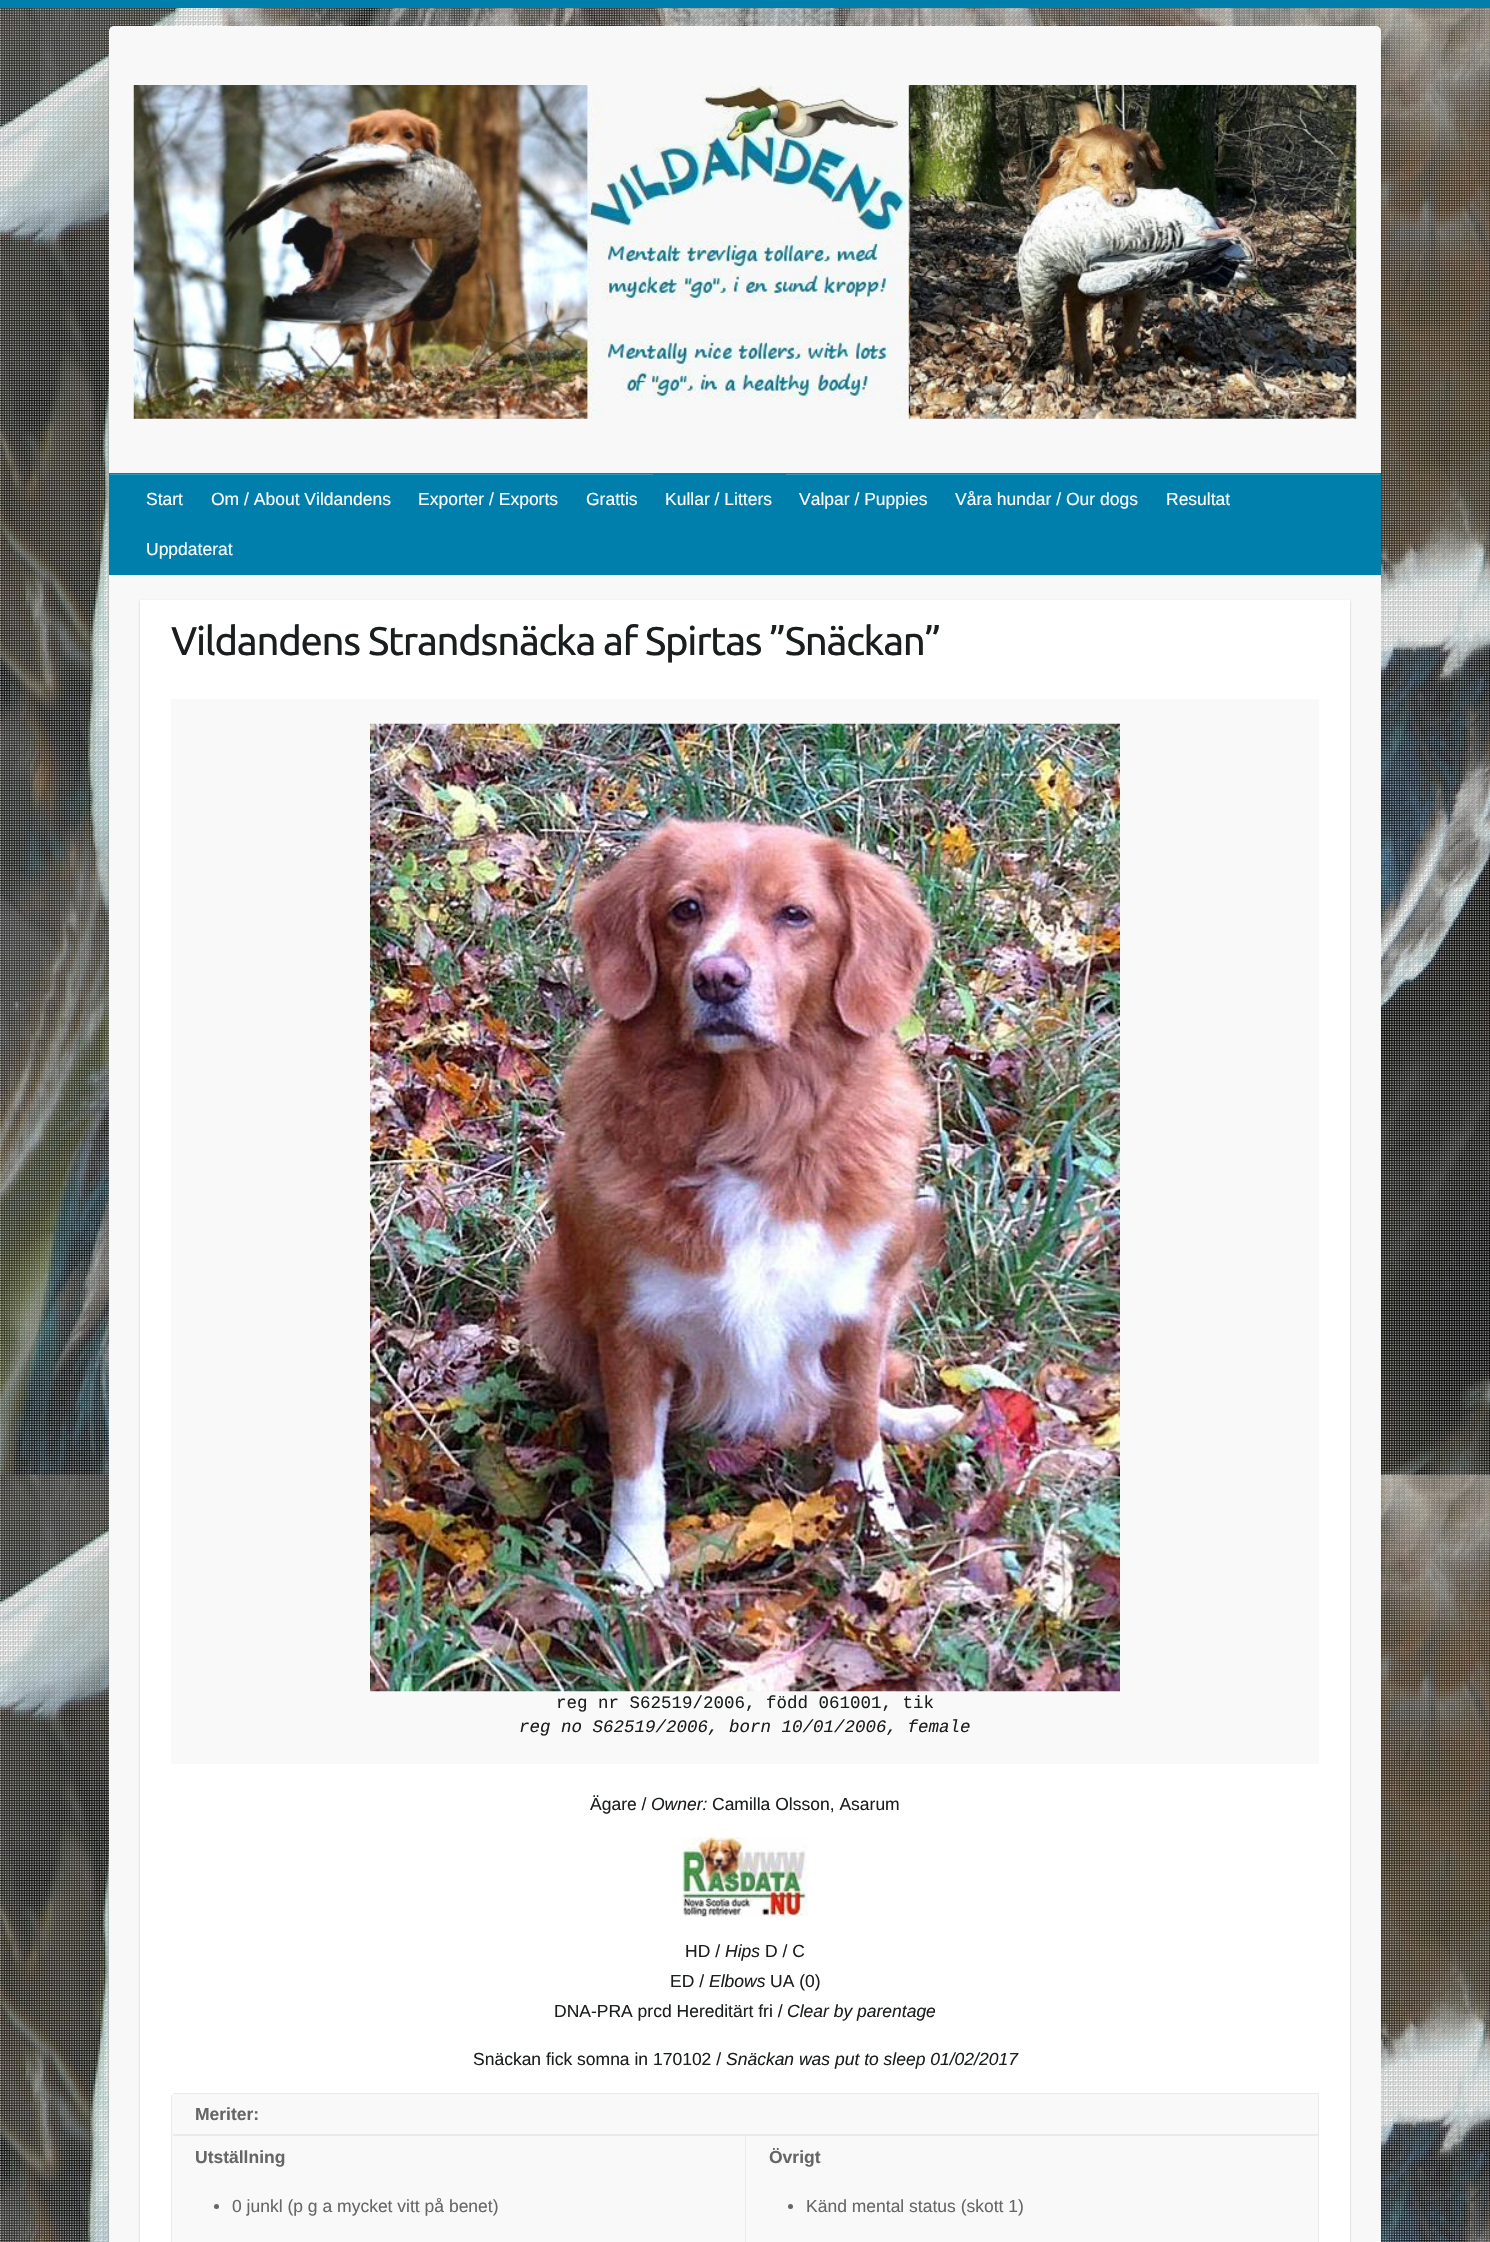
static SkFont makeFont(const char* family, int weight, float size, bool italic = false) {
  SkFontStyle style(weight, SkFontStyle::kNormal_Width,
    italic ? SkFontStyle::kItalic_Slant : SkFontStyle::kUpright_Slant);
  SkFont result(fontMgr->matchFamilyStyle(family, style), size);
  result.setSubpixel(true);
  return result;
}

static void text(SkCanvas* c, const char* s, float x, float y, const SkFont& font, SkColor color) {
  SkPaint ink(SkColor4f::FromColor(color));
  ink.setAntiAlias(true);
  c->drawString(s, x, y, font, ink);
}

static void spacedText(SkCanvas* c, const char* s, float x, float y, const SkFont& font, const SkPaint& ink, float letter, float word) {
  std::vector<SkGlyphID> glyphs(font.countText(s, strlen(s), SkTextEncoding::kUTF8));
  std::vector<float> xs(glyphs.size());
  font.textToGlyphs(s, strlen(s), SkTextEncoding::kUTF8, glyphs);
  font.getXPos(glyphs, xs, x);
  float extra = 0;
  for (size_t i = 0; i < glyphs.size(); i++) {
    xs[i] += extra;
    extra += letter + word * (glyphs[i] == font.unicharToGlyph(' '));
  }
  c->drawTextBlob(SkTextBlob::MakeFromPosHGlyphs(glyphs, xs, y, font), 0, 0, ink);
}

static void box(SkCanvas* c, float l, float t, float r, float b, SkColor color) {
  SkPaint ink(SkColor4f::FromColor(color));
  ink.setAntiAlias(true);
  c->drawRect(SkRect::MakeLTRB(l, t, r, b), ink);
}

static void roundBox(SkCanvas* c, float l, float t, float r, float b, float radius, SkColor color) {
  SkPaint ink(SkColor4f::FromColor(color));
  ink.setAntiAlias(true);
  c->drawRoundRect(SkRect::MakeLTRB(l, t, r, b), radius, radius, ink);
}

static void picture(SkCanvas* c, const char* path, float l, float t, float r, float b) {
  auto image = SkImages::DeferredFromEncodedData(SkData::MakeFromFileName(path));
  c->drawImageRect(image, SkRect::MakeLTRB(l, t, r, b), SkSamplingOptions());
}

void draw(SkCanvas* c) {
  SkPaint paint;
  paint.setAntiAlias(true);
  c->clear(0xffffffff);
  picture(c, "img_01.png", 0, 8, 1490, 2242);
  box(c, 0, 0, 1490, 8, 0xff007fac);
  paint.setColor(0x33000000);
  paint.setMaskFilter(SkMaskFilter::MakeBlur(kNormal_SkBlurStyle, 1));
  c->drawRoundRect(SkRect::MakeLTRB(109, 28, 1381, 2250), 5, 5, paint);
  paint.setMaskFilter(nullptr);
  roundBox(c, 109, 26, 1381, 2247, 5, 0xfff8f8f8);
  picture(c, "img_02.png", 133, 85, 1357, 419);
  box(c, 109, 473, 1381, 575, 0xff007fac);
  box(c, 110, 474, 1380, 475, 0xff3399bd);
  SkFont face1 = makeFont("Liberation Sans", 400, 17.5f);
  text(c, "Start", 146, 505, face1, 0xffffffff);
  text(c, "Om / About Vildandens", 211, 505, face1, 0xffffffff);
  text(c, "Exporter / Exports", 418, 505, face1, 0xffffffff);
  text(c, "Grattis", 586, 505, face1, 0xffffffff);
  box(c, 653, 474, 786, 475, 0xff007fac);
  text(c, "Kullar / Litters", 665, 505, face1, 0xffffffff);
  text(c, "Valpar / Puppies", 799, 505, face1, 0xffffffff);
  text(c, "Våra hundar / Our dogs", 955, 505, face1, 0xffffffff);
  text(c, "Resultat", 1166, 505, face1, 0xffffffff);
  text(c, "Uppdaterat", 146, 555, face1, 0xffffffff);
  paint.setMaskFilter(SkMaskFilter::MakeBlur(kNormal_SkBlurStyle, 1));
  c->drawRect(SkRect::MakeLTRB(140, 601, 1350, 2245), paint);
  paint.setMaskFilter(nullptr);
  box(c, 140, 600, 1350, 2242, 0xffffffff);
  SkFont face2 = makeFont("Ubuntu", 400, 40);
  paint.setColor(0xff1b1e1f);
  spacedText(c, "Vildandens Strandsnäcka af Spirtas ”Snäckan”", 171, 655, face2, paint, -1.25f, 0);
  box(c, 171, 699, 1319, 1764, 0xfff9f9f9);
  picture(c, "img_03.png", 370, 723, 1120, 1692);
  SkFont face3 = makeFont("Liberation Mono", 400, 17.5f);
  text(c, "reg nr S62519/2006, född 061001, tik", 556, 1708, face3, 0xff1b1e1f);
  SkFont face4 = makeFont("Liberation Mono", 400, 17.5f, true);
  text(c, "reg no S62519/2006, born 10/01/2006, female", 519, 1732, face4, 0xff1b1e1f);
  text(c, "Ägare /", 590, 1810, face1, 0xff1b1e1f);
  SkFont face5 = makeFont("Liberation Sans", 400, 17.5f, true);
  text(c, "Owner:", 651, 1810, face5, 0xff1b1e1f);
  text(c, "Camilla Olsson, Asarum", 712, 1810, face1, 0xff1b1e1f);
  picture(c, "img_04.png", 682, 1837, 808, 1917);
  text(c, "HD /", 685, 1957, face1, 0xff1b1e1f);
  text(c, "Hips", 725, 1957, face5, 0xff1b1e1f);
  text(c, "D / C", 765, 1957, face1, 0xff1b1e1f);
  text(c, "ED /", 670, 1987, face1, 0xff1b1e1f);
  text(c, "Elbows", 709, 1987, face5, 0xff1b1e1f);
  text(c, "UA (0)", 770, 1987, face1, 0xff1b1e1f);
  text(c, "DNA-PRA prcd Hereditärt fri /", 554, 2017, face1, 0xff1b1e1f);
  text(c, "Clear by parentage", 787, 2017, face5, 0xff1b1e1f);
  text(c, "Snäckan fick somna in 170102 /", 473, 2065, face1, 0xff1b1e1f);
  text(c, "Snäckan was put to sleep 01/02/2017", 726, 2065, face5, 0xff1b1e1f);
  roundBox(c, 171, 2093, 1319, 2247, 5, 0xfff9f9f9);
  box(c, 171, 2095, 172, 2242, 0xffeaeaea);
  box(c, 1317, 2094, 1318, 2095, 0xfff9f9f9);
  box(c, 173, 2093, 1319, 2094, 0xffeaeaea);
  box(c, 1318, 2093, 1319, 2135, 0xffeaeaea);
  box(c, 173, 2134, 1319, 2135, 0xffeaeaea);
  SkFont face6 = makeFont("Liberation Sans", 700, 17.5f);
  text(c, "Meriter:", 195, 2120, face6, 0xff666666);
  box(c, 173, 2135, 1319, 2136, 0xffeaeaea);
  box(c, 745, 2135, 746, 2242, 0xffeaeaea);
  text(c, "Utställning", 195, 2163, face6, 0xff666666);
  paint.setColor(0xff666666);
  c->drawCircle(216.5f, 2206.5f, 2.5f, paint);
  text(c, "0 junkl (p g a mycket vitt på benet)", 232, 2212, face1, 0xff666666);
  box(c, 1318, 2135, 1319, 2242, 0xffeaeaea);
  text(c, "Övrigt", 769, 2163, face6, 0xff666666);
  c->drawCircle(790.5f, 2206.5f, 2.5f, paint);
  text(c, "Känd mental status (skott 1)", 806, 2212, face1, 0xff666666);
}
